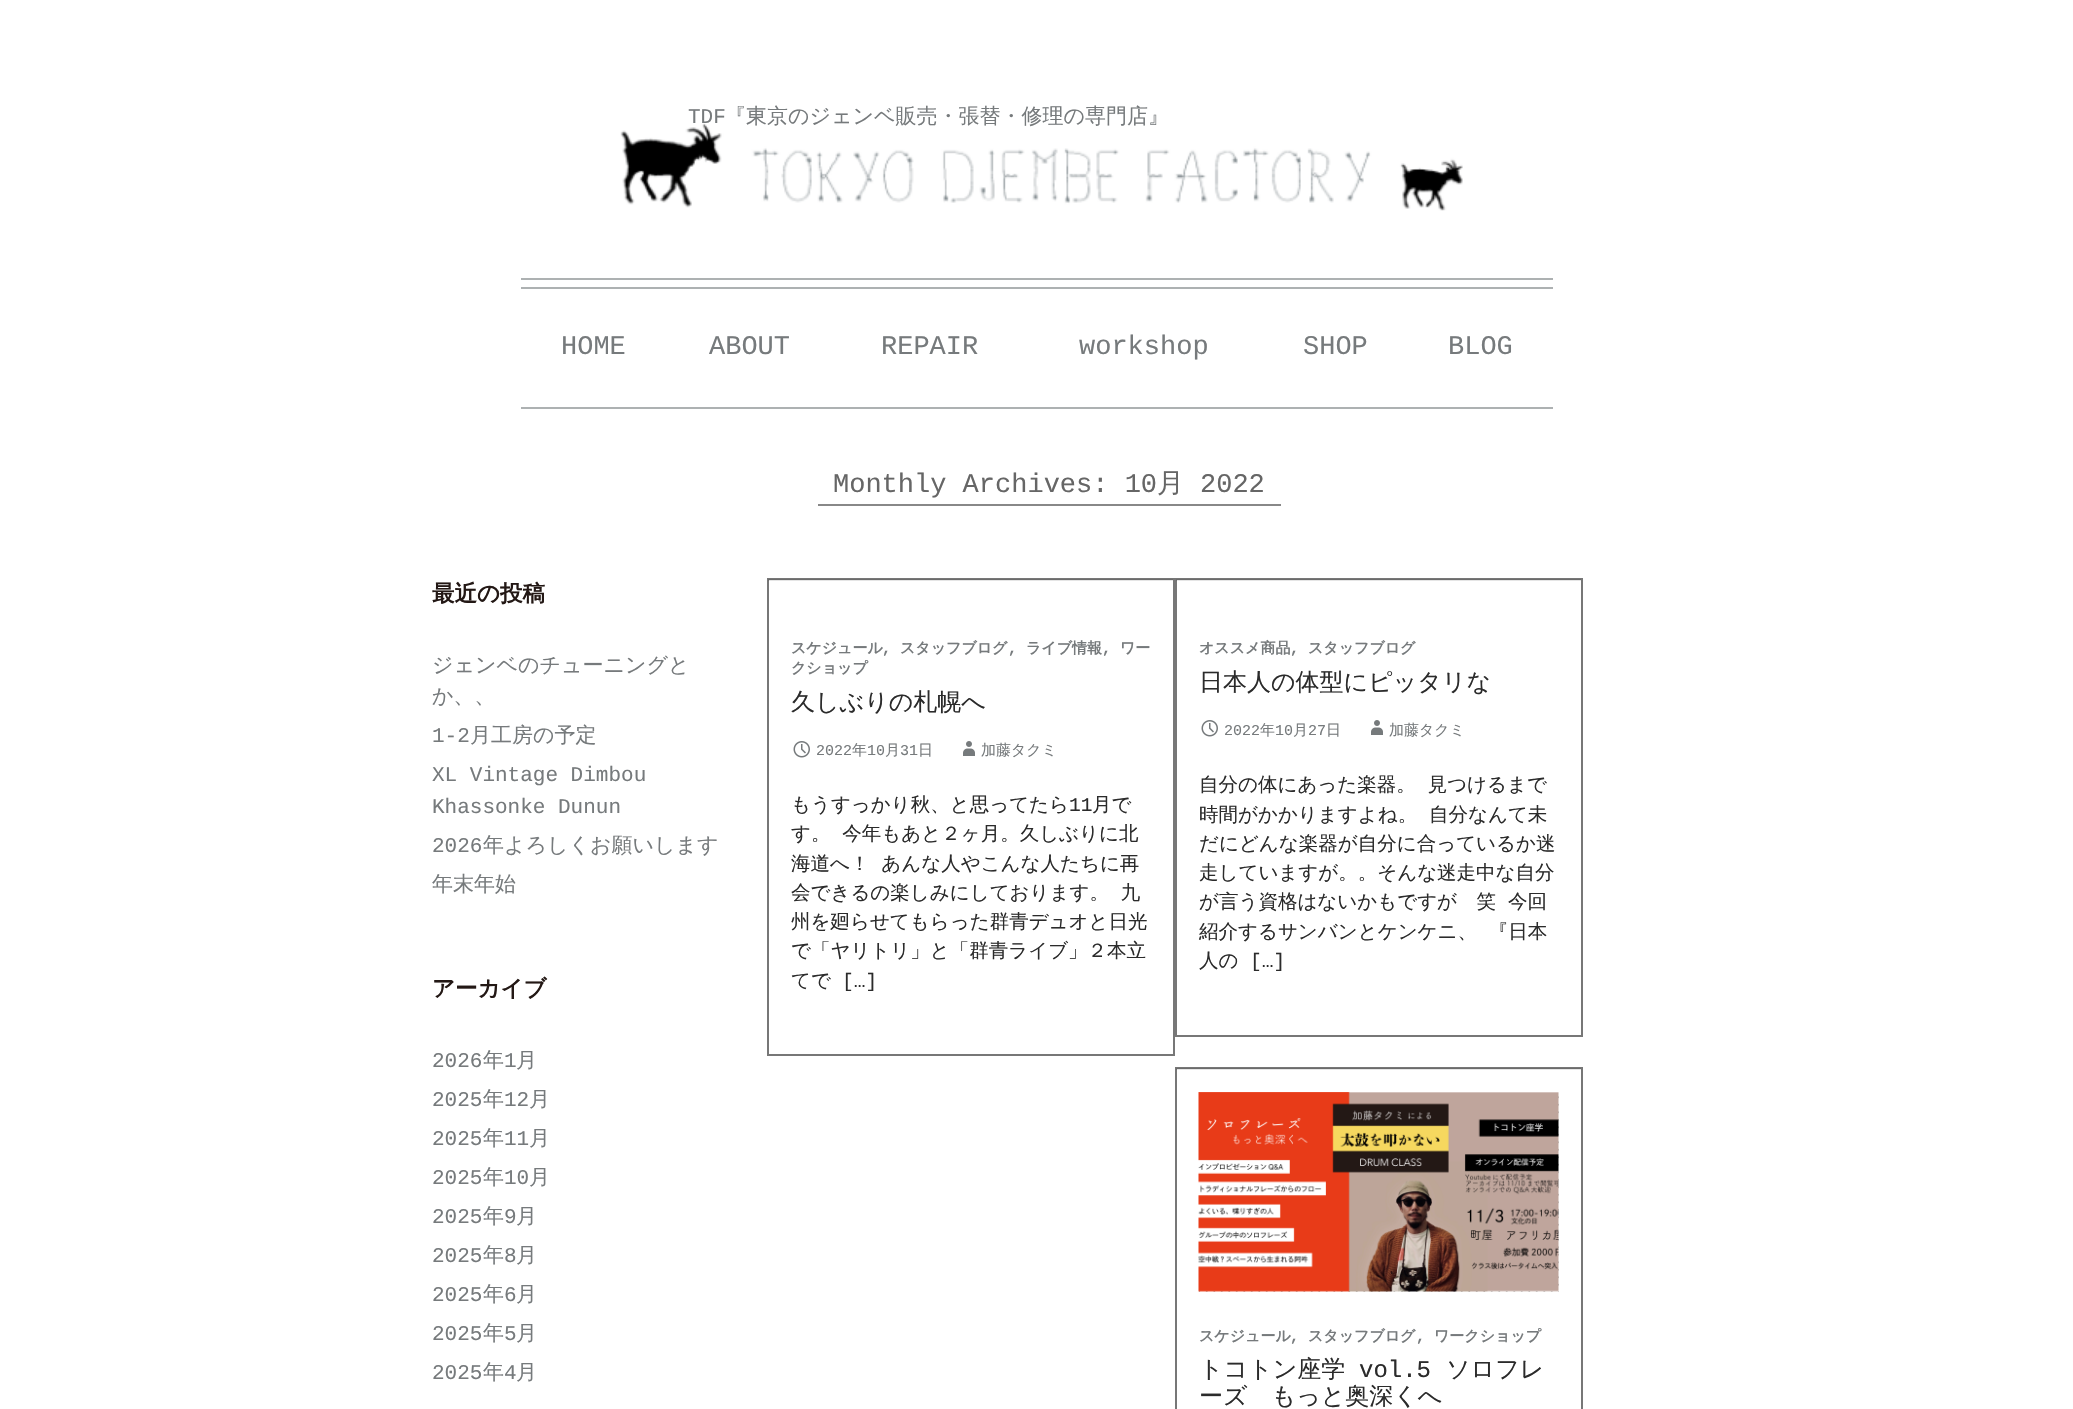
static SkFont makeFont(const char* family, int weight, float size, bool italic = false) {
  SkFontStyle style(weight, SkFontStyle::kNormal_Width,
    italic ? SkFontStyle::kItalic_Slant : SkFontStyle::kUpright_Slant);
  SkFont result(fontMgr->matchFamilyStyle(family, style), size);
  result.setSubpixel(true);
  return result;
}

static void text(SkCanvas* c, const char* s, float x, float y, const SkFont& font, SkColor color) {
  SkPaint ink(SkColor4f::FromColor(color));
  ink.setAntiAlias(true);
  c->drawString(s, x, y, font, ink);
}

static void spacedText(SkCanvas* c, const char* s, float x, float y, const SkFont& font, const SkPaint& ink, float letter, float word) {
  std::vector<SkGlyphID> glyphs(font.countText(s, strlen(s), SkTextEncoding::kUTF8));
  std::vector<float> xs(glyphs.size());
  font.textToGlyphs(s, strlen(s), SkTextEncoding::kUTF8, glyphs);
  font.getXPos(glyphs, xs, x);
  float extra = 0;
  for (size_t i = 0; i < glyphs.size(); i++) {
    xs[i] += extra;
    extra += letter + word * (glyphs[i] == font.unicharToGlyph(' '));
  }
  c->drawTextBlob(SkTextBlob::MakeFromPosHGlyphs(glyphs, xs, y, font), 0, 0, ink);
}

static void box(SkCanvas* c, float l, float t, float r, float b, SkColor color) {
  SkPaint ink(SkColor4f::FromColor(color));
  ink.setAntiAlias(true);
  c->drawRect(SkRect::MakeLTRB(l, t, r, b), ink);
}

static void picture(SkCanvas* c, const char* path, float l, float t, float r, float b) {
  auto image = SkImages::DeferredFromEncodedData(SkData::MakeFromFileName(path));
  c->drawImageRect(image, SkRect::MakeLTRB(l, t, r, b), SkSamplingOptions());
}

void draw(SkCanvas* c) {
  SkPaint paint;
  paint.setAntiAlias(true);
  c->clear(0xffffffff);
  SkFont face1 = makeFont("Liberation Mono", 400, 21);
  text(c, "TDF", 688, 123, face1, 0xff767a7c);
  picture(c, "img_01.png", 620, 123, 1463, 211);
  SkFont face2 = makeFont("WenQuanYi Zen Hei", 500, 21);
  text(c, "『東京のジェンベ販売・張替・修理の専門店』", 725, 123, face2, 0xff767a7c);
  box(c, 521, 278, 1553, 280, 0xffadb1b2);
  box(c, 521, 287, 1553, 289, 0xffadb1b2);
  box(c, 521, 407, 1553, 409, 0xffadb1b2);
  SkFont face3 = makeFont("Liberation Mono", 400, 27);
  text(c, "HOME", 561, 354, face3, 0xff767a7c);
  text(c, "ABOUT", 709, 354, face3, 0xff767a7c);
  text(c, "REPAIR", 881, 354, face3, 0xff767a7c);
  text(c, "workshop", 1079, 354, face3, 0xff767a7c);
  text(c, "SHOP", 1303, 354, face3, 0xff767a7c);
  text(c, "BLOG", 1448, 354, face3, 0xff767a7c);
  text(c, "Monthly Archives: 10", 833, 492, face3, 0xff666666);
  box(c, 818, 504, 1281, 506, 0xff888888);
  SkFont face4 = makeFont("WenQuanYi Zen Hei", 500, 27);
  text(c, "月", 1157, 492, face4, 0xff666666);
  text(c, "2022", 1200, 492, face3, 0xff666666);
  SkFont face5 = makeFont("WenQuanYi Zen Hei", 700, 22.5f);
  text(c, "最近の投稿", 432, 601, face5, 0xff231815);
  text(c, "ジェンベのチューニングと", 432, 672, face2, 0xff767a7c);
  text(c, "か、、", 432, 703, face2, 0xff767a7c);
  text(c, "1-2", 432, 742, face1, 0xff767a7c);
  text(c, "月工房の予定", 470, 742, face2, 0xff767a7c);
  text(c, "XL Vintage Dimbou", 432, 781, face1, 0xff767a7c);
  text(c, "Khassonke Dunun", 432, 813, face1, 0xff767a7c);
  text(c, "2026", 432, 852, face1, 0xff767a7c);
  text(c, "年よろしくお願いします", 483, 852, face2, 0xff767a7c);
  text(c, "年末年始", 432, 891, face2, 0xff767a7c);
  text(c, "アーカイブ", 432, 996, face5, 0xff231815);
  text(c, "2026", 432, 1067, face1, 0xff767a7c);
  text(c, "年", 483, 1067, face2, 0xff767a7c);
  text(c, "1", 504, 1067, face1, 0xff767a7c);
  text(c, "月", 516, 1067, face2, 0xff767a7c);
  text(c, "2025", 432, 1106, face1, 0xff767a7c);
  text(c, "年", 483, 1106, face2, 0xff767a7c);
  text(c, "12", 504, 1106, face1, 0xff767a7c);
  text(c, "月", 529, 1106, face2, 0xff767a7c);
  text(c, "2025", 432, 1145, face1, 0xff767a7c);
  text(c, "年", 483, 1145, face2, 0xff767a7c);
  text(c, "11", 504, 1145, face1, 0xff767a7c);
  text(c, "月", 529, 1145, face2, 0xff767a7c);
  text(c, "2025", 432, 1184, face1, 0xff767a7c);
  text(c, "年", 483, 1184, face2, 0xff767a7c);
  text(c, "10", 504, 1184, face1, 0xff767a7c);
  text(c, "月", 529, 1184, face2, 0xff767a7c);
  text(c, "2025", 432, 1223, face1, 0xff767a7c);
  text(c, "年", 483, 1223, face2, 0xff767a7c);
  text(c, "9", 504, 1223, face1, 0xff767a7c);
  text(c, "月", 516, 1223, face2, 0xff767a7c);
  text(c, "2025", 432, 1262, face1, 0xff767a7c);
  text(c, "年", 483, 1262, face2, 0xff767a7c);
  text(c, "8", 504, 1262, face1, 0xff767a7c);
  text(c, "月", 516, 1262, face2, 0xff767a7c);
  text(c, "2025", 432, 1301, face1, 0xff767a7c);
  text(c, "年", 483, 1301, face2, 0xff767a7c);
  text(c, "6", 504, 1301, face1, 0xff767a7c);
  text(c, "月", 516, 1301, face2, 0xff767a7c);
  text(c, "2025", 432, 1340, face1, 0xff767a7c);
  text(c, "年", 483, 1340, face2, 0xff767a7c);
  text(c, "5", 504, 1340, face1, 0xff767a7c);
  text(c, "月", 516, 1340, face2, 0xff767a7c);
  text(c, "2025", 432, 1379, face1, 0xff767a7c);
  text(c, "年", 483, 1379, face2, 0xff767a7c);
  text(c, "4", 504, 1379, face1, 0xff767a7c);
  text(c, "月", 516, 1379, face2, 0xff767a7c);
  paint.setStyle(SkPaint::kStroke_Style);
  paint.setStrokeWidth(2);
  paint.setColor(0xff777777);
  c->drawRect(SkRect::MakeLTRB(768, 579, 1174, 1055), paint);
  box(c, 768, 579, 1173, 581, 0x1a000000);
  SkFont face6 = makeFont("WenQuanYi Zen Hei", 700, 15);
  text(c, "スケジュール", 791, 653, face6, 0xff767a7c);
  SkFont face7 = makeFont("Liberation Mono", 700, 15);
  text(c, ",", 882, 653, face7, 0xff767a7c);
  text(c, "スタッフブログ", 900, 653, face6, 0xff767a7c);
  text(c, ",", 1008, 653, face7, 0xff767a7c);
  text(c, "ライブ情報", 1026, 653, face6, 0xff767a7c);
  text(c, ",", 1102, 653, face7, 0xff767a7c);
  text(c, "ワー", 1120, 653, face6, 0xff767a7c);
  text(c, "クショップ", 791, 673, face6, 0xff767a7c);
  SkFont face8 = makeFont("WenQuanYi Zen Hei", 500, 24);
  text(c, "久しぶりの札幌へ", 791, 710, face8, 0xff2b2b2b);
  picture(c, "img_02.png", 793, 741, 810, 758);
  SkFont face9 = makeFont("Liberation Mono", 400, 15);
  text(c, "2022", 816, 755, face9, 0xff767a7c);
  SkFont face10 = makeFont("WenQuanYi Zen Hei", 500, 15);
  text(c, "年", 852, 755, face10, 0xff767a7c);
  text(c, "10", 867, 755, face9, 0xff767a7c);
  text(c, "月", 885, 755, face10, 0xff767a7c);
  text(c, "31", 900, 755, face9, 0xff767a7c);
  text(c, "日", 918, 755, face10, 0xff767a7c);
  picture(c, "img_03.png", 963, 741, 975, 756);
  text(c, "加藤タクミ", 981, 755, face10, 0xff767a7c);
  SkFont face11 = makeFont("WenQuanYi Zen Hei", 500, 19.5f);
  text(c, "もうすっかり秋、と思ってたら", 791, 811, face11, 0xff2b2b2b);
  SkFont face12 = makeFont("Liberation Mono", 400, 19.5f);
  text(c, "11", 1069, 811, face12, 0xff2b2b2b);
  text(c, "月で", 1092, 811, face11, 0xff2b2b2b);
  paint.setStyle(SkPaint::kFill_Style);
  paint.setColor(0xff2b2b2b);
  spacedText(c, "す。 今年もあと２ヶ月。久しぶりに北", 791, 840, face11, paint, 0, 6);
  spacedText(c, "海道へ！ あんな人やこんな人たちに再", 791, 870, face11, paint, 0, 6);
  spacedText(c, "会できるの楽しみにしております。 九", 791, 899, face11, paint, 0, 6);
  text(c, "州を廻らせてもらった群青デュオと日光", 791, 928, face11, 0xff2b2b2b);
  text(c, "で「ヤリトリ」と「群青ライブ」２本立", 791, 957, face11, 0xff2b2b2b);
  text(c, "てで", 791, 987, face11, 0xff2b2b2b);
  text(c, "[…]", 842, 987, face12, 0xff2b2b2b);
  paint.setStyle(SkPaint::kStroke_Style);
  paint.setColor(0xff777777);
  c->drawRect(SkRect::MakeLTRB(1176, 579, 1582, 1036), paint);
  box(c, 1176, 579, 1581, 581, 0x1a000000);
  text(c, "オススメ商品", 1199, 653, face6, 0xff767a7c);
  text(c, ",", 1290, 653, face7, 0xff767a7c);
  text(c, "スタッフブログ", 1308, 653, face6, 0xff767a7c);
  text(c, "日本人の体型にピッタリな", 1199, 690, face8, 0xff2b2b2b);
  picture(c, "img_02.png", 1201, 720, 1218, 737);
  text(c, "2022", 1224, 735, face9, 0xff767a7c);
  text(c, "年", 1260, 735, face10, 0xff767a7c);
  text(c, "10", 1275, 735, face9, 0xff767a7c);
  text(c, "月", 1293, 735, face10, 0xff767a7c);
  text(c, "27", 1308, 735, face9, 0xff767a7c);
  text(c, "日", 1326, 735, face10, 0xff767a7c);
  picture(c, "img_03.png", 1371, 720, 1383, 735);
  text(c, "加藤タクミ", 1389, 735, face10, 0xff767a7c);
  paint.setStyle(SkPaint::kFill_Style);
  paint.setColor(0xff2b2b2b);
  spacedText(c, "自分の体にあった楽器。 見つけるまで", 1199, 791, face11, paint, 0, 6);
  spacedText(c, "時間がかかりますよね。 自分なんて未", 1199, 821, face11, paint, 0, 6);
  text(c, "だにどんな楽器が自分に合っているか迷", 1199, 850, face11, 0xff2b2b2b);
  text(c, "走していますが。。そんな迷走中な自分", 1199, 879, face11, 0xff2b2b2b);
  spacedText(c, "が言う資格はないかもですが　笑 今回", 1199, 908, face11, paint, 0, 6);
  spacedText(c, "紹介するサンバンとケンケニ、 『日本", 1199, 938, face11, paint, 0, 6);
  text(c, "人の", 1199, 967, face11, 0xff2b2b2b);
  text(c, "[…]", 1250, 967, face12, 0xff2b2b2b);
  paint.setStyle(SkPaint::kStroke_Style);
  paint.setColor(0xff777777);
  c->drawRect(SkRect::MakeLTRB(1176, 1068, 1582, 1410), paint);
  box(c, 1176, 1068, 1581, 1070, 0x1a000000);
  box(c, 1199, 1096, 1559, 1292, 0xffb2b2b2);
  picture(c, "img_04.png", 1199, 1092, 1559, 1292);
  picture(c, "img_05.png", 1198, 1092, 1559, 1292);
  text(c, "スケジュール", 1199, 1341, face6, 0xff767a7c);
  text(c, ",", 1290, 1341, face7, 0xff767a7c);
  text(c, "スタッフブログ", 1308, 1341, face6, 0xff767a7c);
  text(c, ",", 1416, 1341, face7, 0xff767a7c);
  text(c, "ワークショップ", 1434, 1341, face6, 0xff767a7c);
  text(c, "トコトン座学", 1199, 1377, face8, 0xff2b2b2b);
  SkFont face13 = makeFont("Liberation Mono", 400, 24);
  text(c, "vol.5", 1359, 1377, face13, 0xff2b2b2b);
  text(c, "ソロフレ", 1446, 1377, face8, 0xff2b2b2b);
  text(c, "ーズ　もっと奥深くへ", 1199, 1404, face8, 0xff2b2b2b);
}
